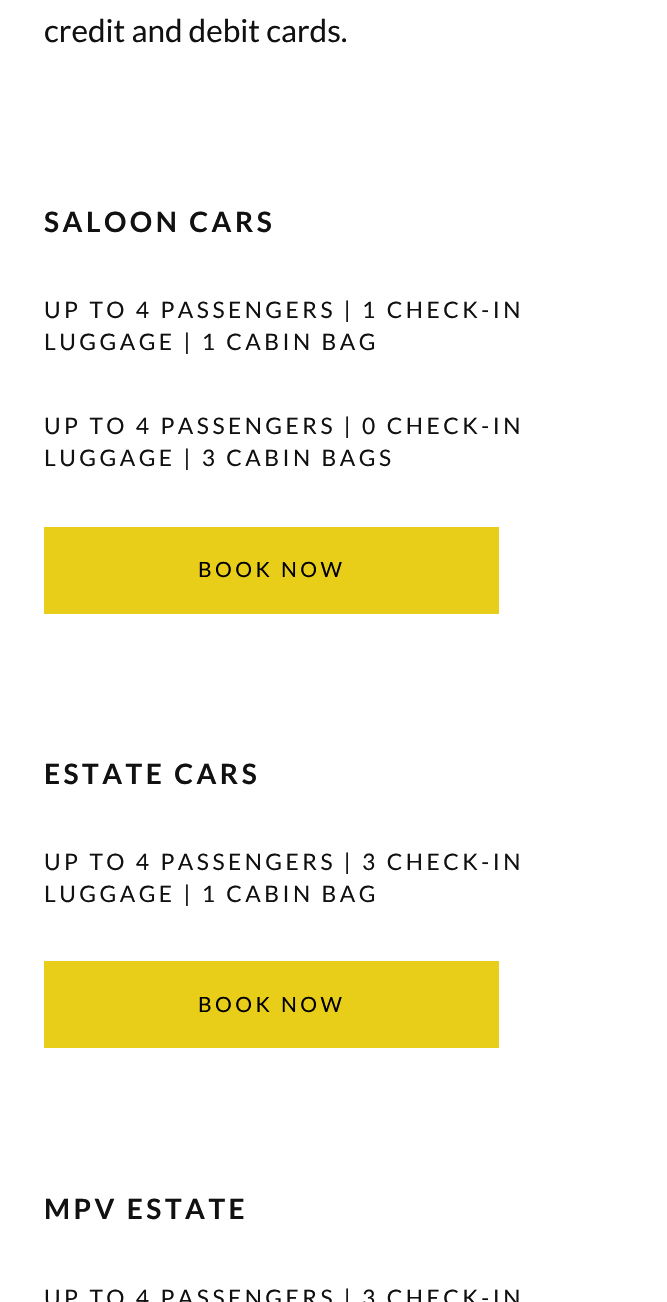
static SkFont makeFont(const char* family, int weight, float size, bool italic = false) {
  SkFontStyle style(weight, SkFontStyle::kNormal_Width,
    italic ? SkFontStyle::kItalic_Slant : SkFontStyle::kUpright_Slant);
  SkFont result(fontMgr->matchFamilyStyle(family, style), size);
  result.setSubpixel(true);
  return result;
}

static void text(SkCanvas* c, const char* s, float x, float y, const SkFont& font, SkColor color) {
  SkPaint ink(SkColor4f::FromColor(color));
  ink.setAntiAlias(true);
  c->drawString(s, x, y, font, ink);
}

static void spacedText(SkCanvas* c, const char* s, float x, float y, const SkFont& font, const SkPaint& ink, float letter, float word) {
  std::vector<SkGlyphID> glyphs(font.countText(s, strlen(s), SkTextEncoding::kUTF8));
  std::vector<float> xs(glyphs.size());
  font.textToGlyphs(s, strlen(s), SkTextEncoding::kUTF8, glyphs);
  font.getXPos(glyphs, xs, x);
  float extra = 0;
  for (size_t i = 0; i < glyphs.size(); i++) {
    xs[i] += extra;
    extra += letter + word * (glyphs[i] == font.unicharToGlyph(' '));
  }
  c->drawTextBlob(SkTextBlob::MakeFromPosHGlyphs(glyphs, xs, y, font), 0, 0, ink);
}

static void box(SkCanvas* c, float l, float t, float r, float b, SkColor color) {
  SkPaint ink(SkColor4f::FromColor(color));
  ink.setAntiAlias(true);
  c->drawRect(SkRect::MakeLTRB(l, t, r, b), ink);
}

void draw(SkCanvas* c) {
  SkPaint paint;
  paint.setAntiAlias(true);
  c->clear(0xffffffff);
  SkFont face1 = makeFont("Lato", 400, 31.5f);
  text(c, "credit and debit cards.", 44, 42, face1, 0xff111111);
  SkFont face2 = makeFont("Lato", 700, 28);
  paint.setColor(0xff111111);
  spacedText(c, "SALOON CARS", 44, 232, face2, paint, 3.5f, 0);
  SkFont face3 = makeFont("Lato", 400, 22.75f);
  spacedText(c, "UP TO 4 PASSENGERS | 1 CHECK-IN", 44, 318, face3, paint, 3.5f, 0);
  spacedText(c, "LUGGAGE | 1 CABIN BAG", 44, 350, face3, paint, 3.5f, 0);
  spacedText(c, "UP TO 4 PASSENGERS | 0 CHECK-IN", 44, 434, face3, paint, 3.5f, 0);
  spacedText(c, "LUGGAGE | 3 CABIN BAGS", 44, 466, face3, paint, 3.5f, 0);
  box(c, 44, 527, 499, 614, 0xffe8cd19);
  SkFont face4 = makeFont("Lato", 400, 21);
  paint.setColor(0xff000000);
  spacedText(c, "BOOK NOW", 198, 577, face4, paint, 3.5f, 0);
  paint.setColor(0xff111111);
  spacedText(c, "ESTATE CARS", 44, 784, face2, paint, 3.5f, 0);
  spacedText(c, "UP TO 4 PASSENGERS | 3 CHECK-IN", 44, 870, face3, paint, 3.5f, 0);
  spacedText(c, "LUGGAGE | 1 CABIN BAG", 44, 902, face3, paint, 3.5f, 0);
  box(c, 44, 961, 499, 1048, 0xffe8cd19);
  paint.setColor(0xff000000);
  spacedText(c, "BOOK NOW", 198, 1012, face4, paint, 3.5f, 0);
  paint.setColor(0xff111111);
  spacedText(c, "MPV ESTATE", 44, 1219, face2, paint, 3.5f, 0);
  spacedText(c, "UP TO 4 PASSENGERS | 3 CHECK-IN", 44, 1306, face3, paint, 3.5f, 0);
}
